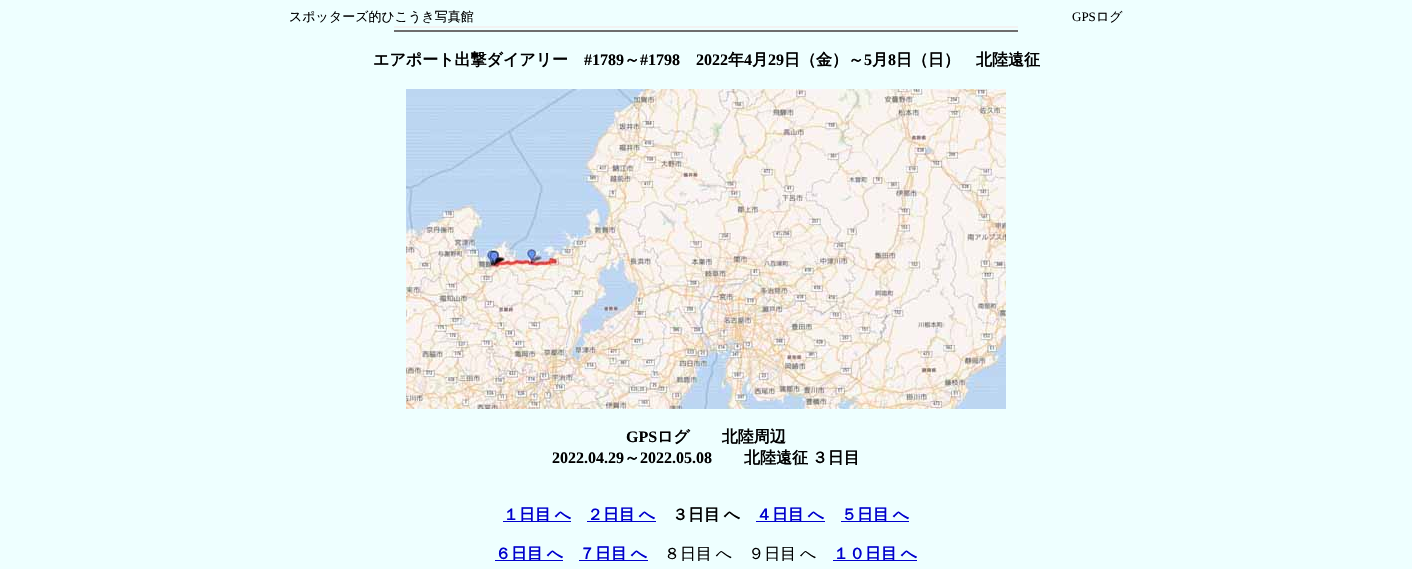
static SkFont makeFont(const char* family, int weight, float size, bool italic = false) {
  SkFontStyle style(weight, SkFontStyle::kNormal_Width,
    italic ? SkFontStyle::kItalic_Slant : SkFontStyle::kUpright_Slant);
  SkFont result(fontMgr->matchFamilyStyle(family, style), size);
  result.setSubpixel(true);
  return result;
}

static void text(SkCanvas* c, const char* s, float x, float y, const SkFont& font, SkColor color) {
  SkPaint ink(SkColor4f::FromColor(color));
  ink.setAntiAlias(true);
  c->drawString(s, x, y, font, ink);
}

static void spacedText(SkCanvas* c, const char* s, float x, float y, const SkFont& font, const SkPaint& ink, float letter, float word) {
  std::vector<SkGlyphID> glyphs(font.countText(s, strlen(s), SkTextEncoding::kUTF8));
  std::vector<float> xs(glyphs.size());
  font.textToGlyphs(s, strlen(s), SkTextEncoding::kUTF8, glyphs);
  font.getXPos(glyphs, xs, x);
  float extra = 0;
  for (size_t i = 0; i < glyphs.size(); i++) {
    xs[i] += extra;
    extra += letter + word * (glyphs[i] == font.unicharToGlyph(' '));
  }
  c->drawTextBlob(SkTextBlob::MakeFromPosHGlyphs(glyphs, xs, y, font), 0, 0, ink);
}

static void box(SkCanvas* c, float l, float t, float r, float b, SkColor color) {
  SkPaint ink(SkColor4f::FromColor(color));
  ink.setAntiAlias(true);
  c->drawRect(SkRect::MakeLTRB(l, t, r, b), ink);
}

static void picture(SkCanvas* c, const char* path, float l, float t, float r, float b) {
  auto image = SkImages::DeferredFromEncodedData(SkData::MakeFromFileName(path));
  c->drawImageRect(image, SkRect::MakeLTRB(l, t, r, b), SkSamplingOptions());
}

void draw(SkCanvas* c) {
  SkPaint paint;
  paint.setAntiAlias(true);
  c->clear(0xffeeffff);
  SkFont face1 = makeFont("WenQuanYi Zen Hei", 500, 13);
  text(c, "スポッターズ的ひこうき写真館", 289, 21, face1, 0xff000000);
  SkFont face2 = makeFont("Liberation Serif", 400, 13);
  text(c, "GPS", 1072, 21, face2, 0xff000000);
  text(c, "ログ", 1096, 21, face1, 0xff000000);
  picture(c, "img_01.png", 394, 26, 1018, 32);
  SkFont face3 = makeFont("WenQuanYi Zen Hei", 700, 16);
  text(c, "エアポート出撃ダイアリー", 373, 65, face3, 0xff000000);
  SkFont face4 = makeFont("Liberation Serif", 700, 16);
  text(c, "#1789", 584, 65, face4, 0xff000000);
  text(c, "～", 624, 65, face3, 0xff000000);
  text(c, "#1798", 640, 65, face4, 0xff000000);
  text(c, "2022", 696, 65, face4, 0xff000000);
  text(c, "年", 728, 65, face3, 0xff000000);
  text(c, "4", 744, 65, face4, 0xff000000);
  text(c, "月", 752, 65, face3, 0xff000000);
  text(c, "29", 768, 65, face4, 0xff000000);
  text(c, "日（金）～", 784, 65, face3, 0xff000000);
  text(c, "5", 864, 65, face4, 0xff000000);
  text(c, "月", 872, 65, face3, 0xff000000);
  text(c, "8", 888, 65, face4, 0xff000000);
  text(c, "日（日）　北陸遠征", 896, 65, face3, 0xff000000);
  picture(c, "img_02.png", 406, 89, 1006, 409);
  text(c, "GPS", 626, 442, face4, 0xff000000);
  text(c, "ログ　　北陸周辺", 657, 442, face3, 0xff000000);
  text(c, "2022.04.29", 552, 463, face4, 0xff000000);
  text(c, "～", 624, 463, face3, 0xff000000);
  text(c, "2022.05.08", 640, 463, face4, 0xff000000);
  paint.setColor(0xff000000);
  spacedText(c, "北陸遠征 ３日目", 744, 463, face3, paint, 0, -1);
  box(c, 503, 521, 571, 522, 0xff0000cd);
  paint.setColor(0xff0000cd);
  spacedText(c, "１日目 へ", 503, 520, face3, paint, 0, -1);
  box(c, 587, 521, 656, 522, 0xff0000cd);
  spacedText(c, "２日目 へ", 587, 520, face3, paint, 0, -1);
  paint.setColor(0xff000000);
  spacedText(c, "３日目 へ", 672, 520, face3, paint, 0, -1);
  box(c, 756, 521, 825, 522, 0xff0000cd);
  paint.setColor(0xff0000cd);
  spacedText(c, "４日目 へ", 756, 520, face3, paint, 0, -1);
  box(c, 841, 521, 909, 522, 0xff0000cd);
  spacedText(c, "５日目 へ", 841, 520, face3, paint, 0, -1);
  box(c, 495, 560, 563, 561, 0xff0000cd);
  spacedText(c, "６日目 へ", 495, 559, face3, paint, 0, -1);
  box(c, 579, 560, 648, 561, 0xff0000cd);
  spacedText(c, "７日目 へ", 579, 559, face3, paint, 0, -1);
  SkFont face5 = makeFont("WenQuanYi Zen Hei", 500, 16);
  paint.setColor(0xff000000);
  spacedText(c, "８日目 へ　９日目 へ", 664, 559, face5, paint, 0, -1);
  box(c, 833, 560, 917, 561, 0xff0000cd);
  paint.setColor(0xff0000cd);
  spacedText(c, "１０日目 へ", 833, 559, face3, paint, 0, -1);
}
